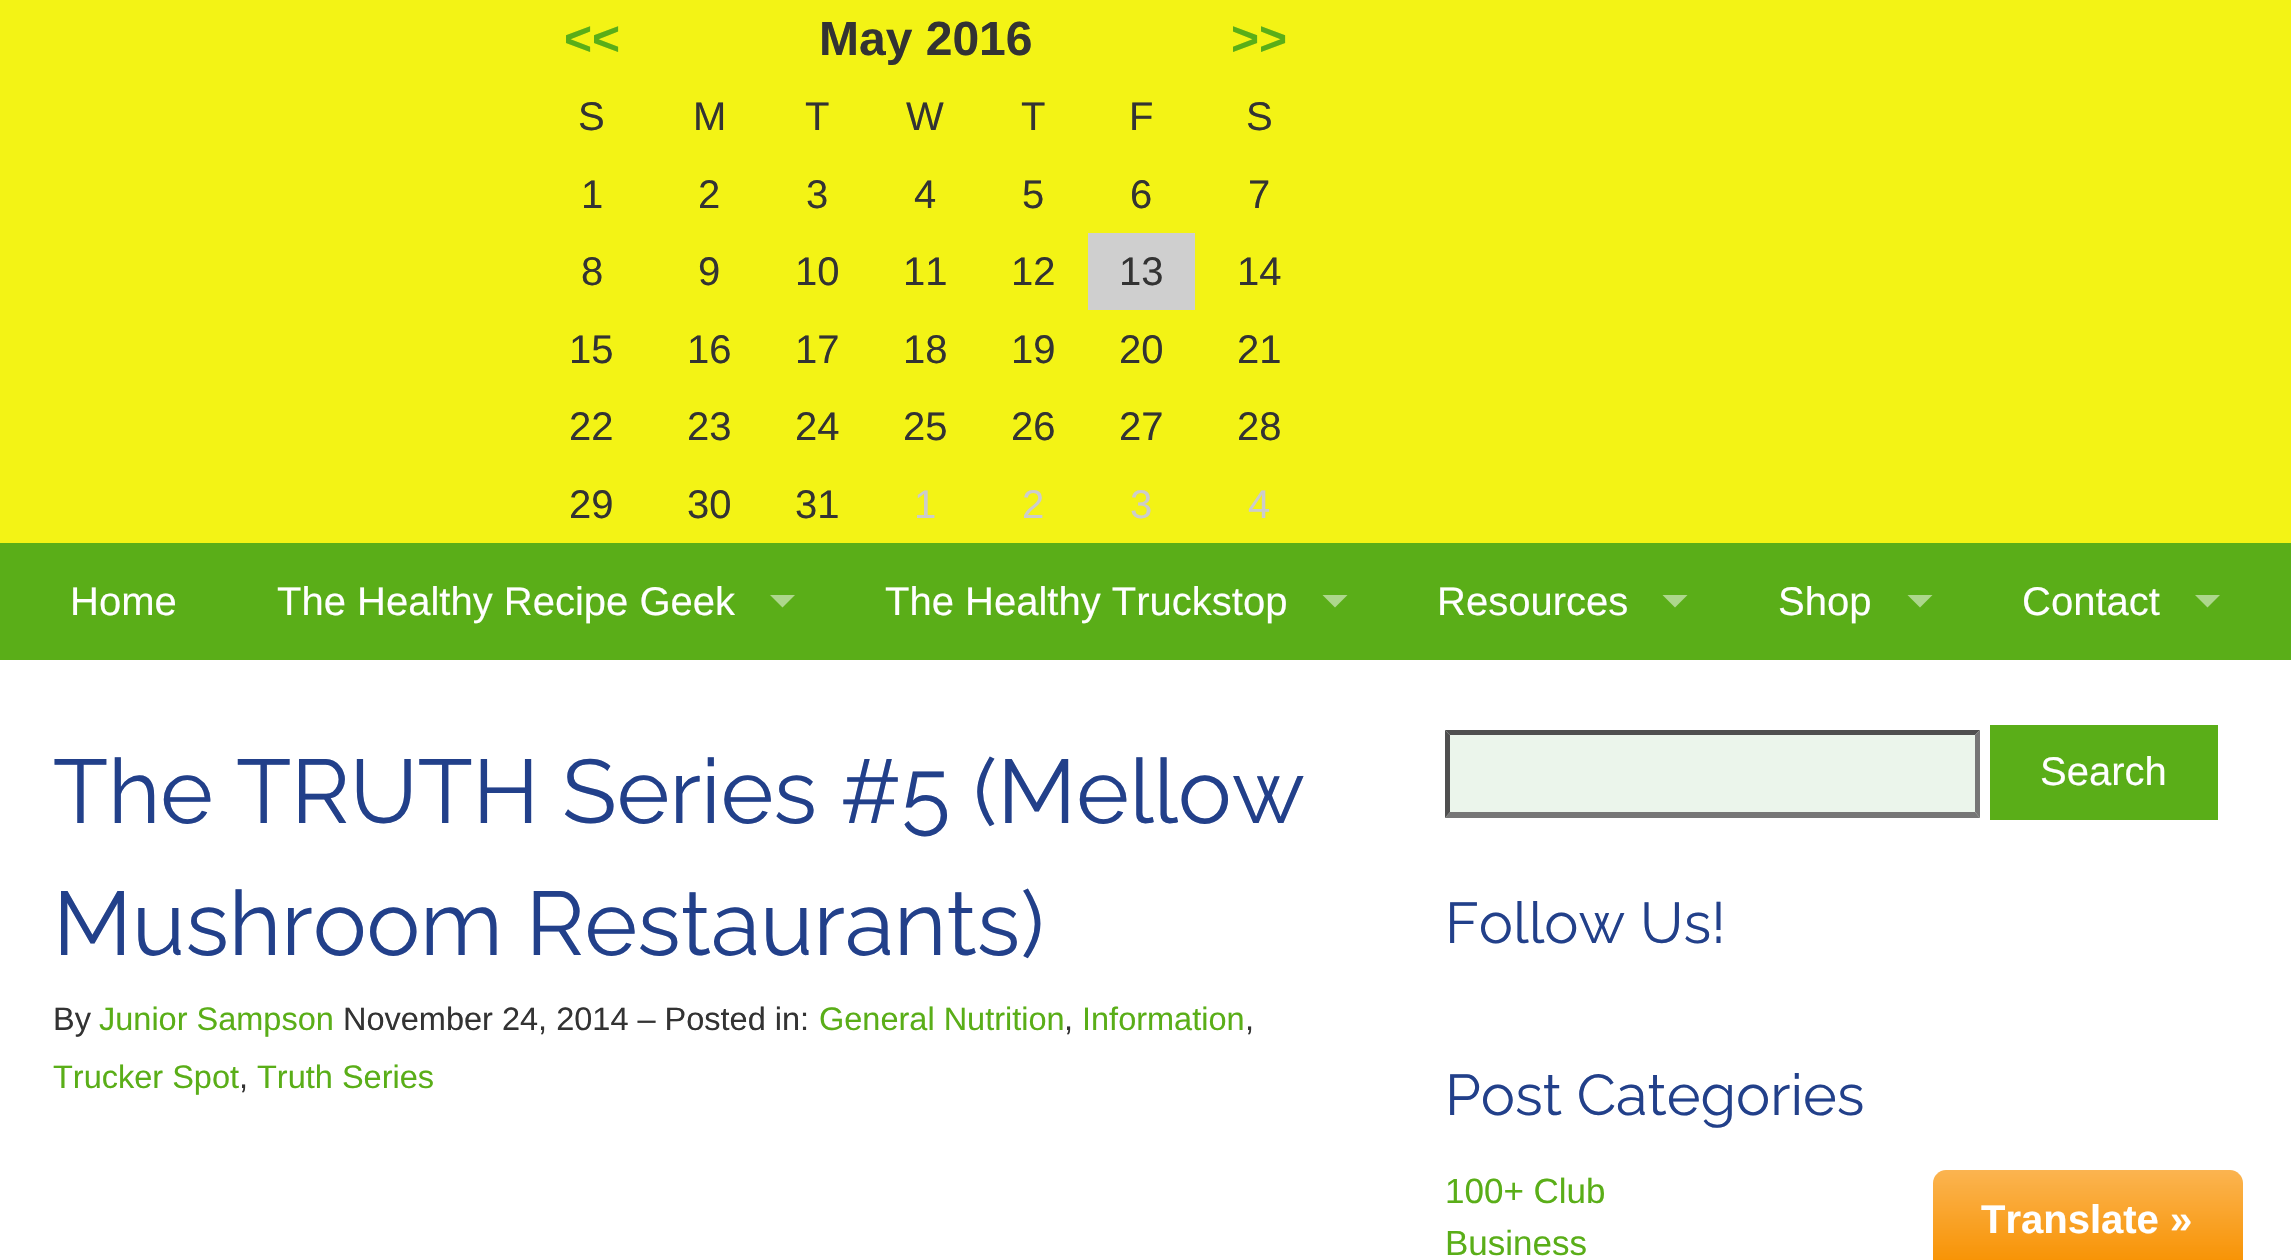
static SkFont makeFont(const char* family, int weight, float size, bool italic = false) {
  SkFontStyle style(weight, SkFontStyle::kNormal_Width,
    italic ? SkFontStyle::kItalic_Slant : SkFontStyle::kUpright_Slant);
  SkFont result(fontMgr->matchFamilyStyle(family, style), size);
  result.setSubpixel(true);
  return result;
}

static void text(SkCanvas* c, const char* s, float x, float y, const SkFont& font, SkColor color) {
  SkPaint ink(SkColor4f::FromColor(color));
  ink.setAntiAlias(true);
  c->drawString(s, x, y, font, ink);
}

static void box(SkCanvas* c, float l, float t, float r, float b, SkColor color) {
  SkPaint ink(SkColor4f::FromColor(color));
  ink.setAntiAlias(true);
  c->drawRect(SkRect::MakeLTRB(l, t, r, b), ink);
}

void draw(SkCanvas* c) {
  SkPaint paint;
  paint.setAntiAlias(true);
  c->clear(0xffffffff);
  box(c, 0, 0, 2291, 543, 0xfff3f315);
  SkFont face1 = makeFont("Liberation Sans", 700, 48);
  text(c, "<<", 564, 55, face1, 0xff5aae18);
  text(c, "May 2016", 819, 55, face1, 0xff333333);
  text(c, ">>", 1231, 55, face1, 0xff5aae18);
  SkFont face2 = makeFont("Liberation Sans", 400, 40);
  text(c, "S", 578, 130, face2, 0xff333333);
  text(c, "M", 693, 130, face2, 0xff333333);
  text(c, "T", 805, 130, face2, 0xff333333);
  text(c, "W", 906, 130, face2, 0xff333333);
  text(c, "T", 1021, 130, face2, 0xff333333);
  text(c, "F", 1129, 130, face2, 0xff333333);
  text(c, "S", 1246, 130, face2, 0xff333333);
  text(c, "1", 581, 208, face2, 0xff333333);
  text(c, "2", 698, 208, face2, 0xff333333);
  text(c, "3", 806, 208, face2, 0xff333333);
  text(c, "4", 914, 208, face2, 0xff333333);
  text(c, "5", 1022, 208, face2, 0xff333333);
  text(c, "6", 1130, 208, face2, 0xff333333);
  text(c, "7", 1248, 208, face2, 0xff333333);
  text(c, "8", 581, 285, face2, 0xff333333);
  text(c, "9", 698, 285, face2, 0xff333333);
  text(c, "10", 795, 285, face2, 0xff333333);
  text(c, "11", 903, 285, face2, 0xff333333);
  text(c, "12", 1011, 285, face2, 0xff333333);
  box(c, 1088, 233, 1195, 310, 0xffcfcfcf);
  text(c, "13", 1119, 285, face2, 0xff333333);
  text(c, "14", 1237, 285, face2, 0xff333333);
  text(c, "15", 569, 363, face2, 0xff333333);
  text(c, "16", 687, 363, face2, 0xff333333);
  text(c, "17", 795, 363, face2, 0xff333333);
  text(c, "18", 903, 363, face2, 0xff333333);
  text(c, "19", 1011, 363, face2, 0xff333333);
  text(c, "20", 1119, 363, face2, 0xff333333);
  text(c, "21", 1237, 363, face2, 0xff333333);
  text(c, "22", 569, 440, face2, 0xff333333);
  text(c, "23", 687, 440, face2, 0xff333333);
  text(c, "24", 795, 440, face2, 0xff333333);
  text(c, "25", 903, 440, face2, 0xff333333);
  text(c, "26", 1011, 440, face2, 0xff333333);
  text(c, "27", 1119, 440, face2, 0xff333333);
  text(c, "28", 1237, 440, face2, 0xff333333);
  text(c, "29", 569, 518, face2, 0xff333333);
  text(c, "30", 687, 518, face2, 0xff333333);
  text(c, "31", 795, 518, face2, 0xff333333);
  text(c, "1", 914, 518, face2, 0xffcccccc);
  text(c, "2", 1022, 518, face2, 0xffcccccc);
  text(c, "3", 1130, 518, face2, 0xffcccccc);
  text(c, "4", 1248, 518, face2, 0xffcccccc);
  box(c, 0, 543, 2291, 660, 0xff5aae18);
  text(c, "Home", 70, 615, face2, 0xffffffff);
  text(c, "The Healthy Recipe Geek", 277, 615, face2, 0xffffffff);
  paint.setColor(0xffadd78c);
  c->drawPath(SkPathBuilder().moveTo(770, 595).lineTo(795, 595).lineTo(782.5f, 607.5f).close().detach(), paint);
  text(c, "The Healthy Truckstop", 885, 615, face2, 0xffffffff);
  c->drawPath(SkPathBuilder().moveTo(1322.5f, 595).lineTo(1347.5f, 595).lineTo(1335, 607.5f).close().detach(), paint);
  text(c, "Resources", 1437, 615, face2, 0xffffffff);
  c->drawPath(SkPathBuilder().moveTo(1662.5f, 595).lineTo(1687.5f, 595).lineTo(1675, 607.5f).close().detach(), paint);
  text(c, "Shop", 1778, 615, face2, 0xffffffff);
  c->drawPath(SkPathBuilder().moveTo(1907.5f, 595).lineTo(1932.5f, 595).lineTo(1920, 607.5f).close().detach(), paint);
  text(c, "Contact", 2022, 615, face2, 0xffffffff);
  c->drawPath(SkPathBuilder().moveTo(2195, 595).lineTo(2220, 595).lineTo(2207.5f, 607.5f).close().detach(), paint);
  SkFont face3 = makeFont("Raleway", 400, 90);
  text(c, "The TRUTH Series #5 (Mellow", 53, 823, face3, 0xff22408a);
  text(c, "Mushroom Restaurants)", 53, 955, face3, 0xff22408a);
  SkFont face4 = makeFont("Liberation Sans", 400, 32.5f);
  text(c, "By", 53, 1030, face4, 0xff333333);
  text(c, "Junior Sampson", 99, 1030, face4, 0xff5aae18);
  text(c, "November 24, 2014 – Posted in:", 343, 1030, face4, 0xff333333);
  text(c, "General Nutrition", 819, 1030, face4, 0xff5aae18);
  text(c, ",", 1064, 1030, face4, 0xff333333);
  text(c, "Information", 1082, 1030, face4, 0xff5aae18);
  text(c, ",", 1245, 1030, face4, 0xff333333);
  text(c, "Trucker Spot", 53, 1088, face4, 0xff5aae18);
  text(c, ",", 239, 1088, face4, 0xff333333);
  text(c, "Truth Series", 257, 1088, face4, 0xff5aae18);
  box(c, 1445, 730, 1980, 818, 0xffebf5eb);
  paint.setColor(0xff4f4f4f);
  c->drawPath(SkPathBuilder().moveTo(1445, 730).lineTo(1980, 730).lineTo(1975, 735).lineTo(1450, 735).close().detach(), paint);
  paint.setColor(0xff767676);
  c->drawPath(SkPathBuilder().moveTo(1980, 730).lineTo(1980, 818).lineTo(1975, 812).lineTo(1975, 735).close().detach(), paint);
  c->drawPath(SkPathBuilder().moveTo(1980, 818).lineTo(1445, 818).lineTo(1450, 812).lineTo(1975, 812).close().detach(), paint);
  paint.setColor(0xff4f4f4f);
  c->drawPath(SkPathBuilder().moveTo(1445, 818).lineTo(1445, 730).lineTo(1450, 735).lineTo(1450, 812).close().detach(), paint);
  box(c, 1990, 725, 2218, 820, 0xff5aae18);
  text(c, "Search", 2040, 785, face2, 0xffffffff);
  SkFont face5 = makeFont("Raleway", 400, 57.5f);
  text(c, "Follow Us!", 1445, 943, face5, 0xff22408a);
  text(c, "Post Categories", 1445, 1115, face5, 0xff22408a);
  SkFont face6 = makeFont("Liberation Sans", 400, 35);
  text(c, "100+ Club", 1445, 1203, face6, 0xff5aae18);
  text(c, "Business", 1445, 1255, face6, 0xff5aae18);
  {
    const SkColor colors[] = {0xfffbb450, 0xfff89406};
    const float stops[] = {0, 1};
    const SkPoint ends[] = {{2088, 1170}, {2088, 1260}};
    paint.setShader(SkGradientShader::MakeLinear(ends, colors, stops, 2, SkTileMode::kClamp));
    paint.setAlpha(255);
  }
  c->drawPath(SkPathBuilder().moveTo(1946, 1170).lineTo(2230, 1170).cubicTo(2237, 1170, 2243, 1176, 2243, 1183).lineTo(2243, 1260).lineTo(1933, 1260).lineTo(1933, 1183).cubicTo(1933, 1176, 1939, 1170, 1946, 1170).close().detach(), paint);
  SkFont face7 = makeFont("Liberation Sans", 700, 40);
  text(c, "Translate »", 1981, 1233, face7, 0xffffffff);
}
